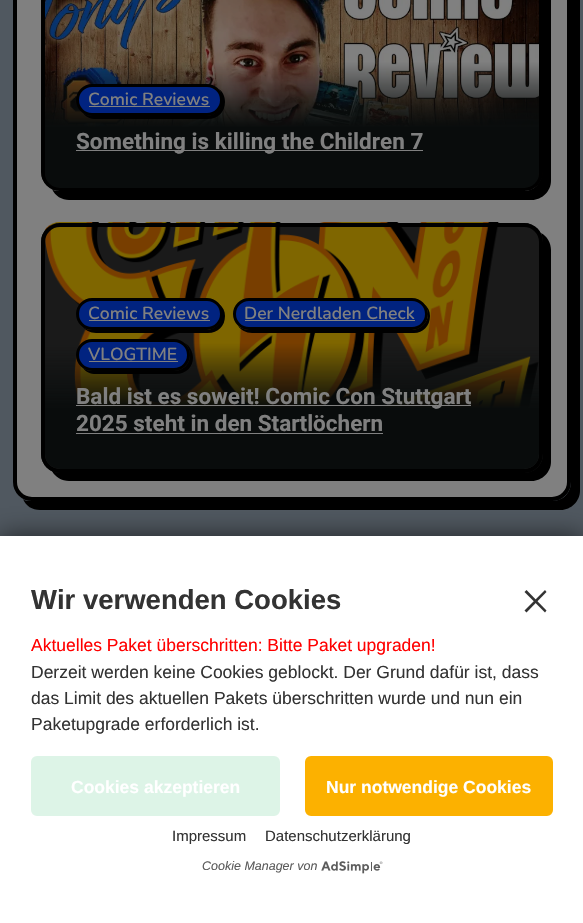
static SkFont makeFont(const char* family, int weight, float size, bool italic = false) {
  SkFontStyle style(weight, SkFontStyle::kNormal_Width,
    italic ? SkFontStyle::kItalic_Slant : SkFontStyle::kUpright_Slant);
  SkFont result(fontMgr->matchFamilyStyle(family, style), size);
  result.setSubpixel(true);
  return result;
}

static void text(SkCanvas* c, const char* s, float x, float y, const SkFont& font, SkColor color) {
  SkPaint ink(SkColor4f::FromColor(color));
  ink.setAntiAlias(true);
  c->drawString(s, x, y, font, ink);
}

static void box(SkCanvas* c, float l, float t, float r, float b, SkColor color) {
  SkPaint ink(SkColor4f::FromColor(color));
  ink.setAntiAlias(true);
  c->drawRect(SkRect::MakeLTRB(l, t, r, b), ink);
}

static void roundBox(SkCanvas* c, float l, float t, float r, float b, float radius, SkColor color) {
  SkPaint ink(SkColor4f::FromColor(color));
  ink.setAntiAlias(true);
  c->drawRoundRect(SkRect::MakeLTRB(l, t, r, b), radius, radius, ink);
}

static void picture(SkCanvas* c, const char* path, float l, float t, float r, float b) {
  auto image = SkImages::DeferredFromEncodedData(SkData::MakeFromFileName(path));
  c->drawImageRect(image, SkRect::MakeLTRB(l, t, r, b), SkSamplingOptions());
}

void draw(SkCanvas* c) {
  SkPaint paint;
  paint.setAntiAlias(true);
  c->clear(0xff505860);
  paint.setColor(0xff000000);
  c->drawPath(SkPathBuilder().moveTo(23, 499).cubicTo(26, 506, 32, 510, 40, 510).lineTo(561, 510).cubicTo(571, 510, 580, 501, 580, 491).lineTo(580, -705).cubicTo(580, -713, 576, -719, 569, -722).cubicTo(571, -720, 571, -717, 571, -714).lineTo(571, 482).cubicTo(571, 493, 563, 501, 552, 501).lineTo(31, 501).cubicTo(28, 501, 25, 501, 23, 499).close().detach(), paint);
  paint.setColor(0xff808080);
  c->drawRoundRect(SkRect::MakeLTRB(15, -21, 569, 499), 17, 17, paint);
  paint.setStyle(SkPaint::kStroke_Style);
  paint.setStrokeWidth(4);
  paint.setColor(0xff000000);
  c->drawRoundRect(SkRect::MakeLTRB(15, -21, 569, 499), 17, 17, paint);
  paint.setStyle(SkPaint::kFill_Style);
  c->drawPath(SkPathBuilder().moveTo(52, 189).cubicTo(55, 196, 62, 200, 69, 200).lineTo(532, 200).cubicTo(542, 200, 551, 191, 551, 181).lineTo(551, -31).cubicTo(551, -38, 547, -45, 541, -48).cubicTo(542, -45, 542, -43, 542, -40).lineTo(542, 172).cubicTo(542, 183, 534, 191, 524, 191).lineTo(60, 191).cubicTo(57, 191, 54, 191, 52, 189).close().detach(), paint);
  picture(c, "img_01.png", 41, 0, 543, 187);
  paint.setStyle(SkPaint::kStroke_Style);
  c->drawRoundRect(SkRect::MakeLTRB(43, -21, 541, 189), 17, 17, paint);
  paint.setStyle(SkPaint::kFill_Style);
  {
    const SkColor colors[] = {0x00090c0c, 0xff090c0c};
    const float stops[] = {0.48f, 0.75f};
    const SkPoint ends[] = {{292, -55}, {292, 188}};
    paint.setShader(SkGradientShader::MakeLinear(ends, colors, stops, 2, SkTileMode::kClamp));
    paint.setAlpha(255);
  }
  c->drawRoundRect(SkRect::MakeLTRB(45, -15, 539, 188), 15, 15, paint);
  paint.setShader(nullptr);
  paint.setColor(0xff000000);
  c->drawPath(SkPathBuilder().moveTo(83, 113).cubicTo(86, 117, 90, 119, 96, 119).lineTo(208, 119).cubicTo(218, 119, 225, 112, 225, 102).cubicTo(225, 97, 223, 92, 219, 89).cubicTo(221, 92, 222, 96, 222, 100).cubicTo(222, 109, 215, 116, 206, 116).lineTo(92, 116).cubicTo(89, 116, 86, 115, 83, 113).close().detach(), paint);
  paint.setColor(0xff012380);
  c->drawRoundRect(SkRect::MakeLTRB(77.5f, 85.5f, 221.5f, 114.5f), 14.5f, 14.5f, paint);
  paint.setStyle(SkPaint::kStroke_Style);
  paint.setStrokeWidth(3);
  paint.setColor(0xff000000);
  c->drawRoundRect(SkRect::MakeLTRB(77.5f, 85.5f, 221.5f, 114.5f), 14.5f, 14.5f, paint);
  SkFont face1 = makeFont("Nunito", 600, 17.5f);
  text(c, "Comic Reviews", 88, 105, face1, 0xff808080);
  box(c, 89, 106, 210, 107, 0xff808080);
  box(c, 76, 150, 423, 151, 0xff808080);
  SkFont face2 = makeFont("Heebo", 700, 22.5f);
  text(c, "Something is killing the Children 7", 76, 149, face2, 0xff808080);
  paint.setStyle(SkPaint::kFill_Style);
  c->drawPath(SkPathBuilder().moveTo(52, 471).cubicTo(55, 477, 62, 481, 69, 481).lineTo(532, 481).cubicTo(542, 481, 551, 472, 551, 462).lineTo(551, 250).cubicTo(551, 243, 547, 236, 541, 233).cubicTo(542, 236, 542, 238, 542, 241).lineTo(542, 454).cubicTo(542, 464, 534, 472, 524, 472).lineTo(60, 472).cubicTo(57, 472, 55, 472, 52, 471).close().detach(), paint);
  roundBox(c, 41, 223, 543, 473, 19, 0xff1a1a1a);
  picture(c, "img_02.png", 45, 222, 539, 408);
  paint.setStyle(SkPaint::kStroke_Style);
  paint.setStrokeWidth(4);
  c->drawRoundRect(SkRect::MakeLTRB(43, 225, 541, 471), 17, 17, paint);
  paint.setStyle(SkPaint::kFill_Style);
  {
    const SkColor colors[] = {0x00090c0c, 0xff090c0c};
    const float stops[] = {0.48f, 0.75f};
    const SkPoint ends[] = {{292, 226}, {292, 469}};
    paint.setShader(SkGradientShader::MakeLinear(ends, colors, stops, 2, SkTileMode::kClamp));
    paint.setAlpha(255);
  }
  c->drawRoundRect(SkRect::MakeLTRB(45, 226, 539, 469), 15, 15, paint);
  paint.setShader(nullptr);
  paint.setColor(0xff000000);
  c->drawPath(SkPathBuilder().moveTo(82, 326).cubicTo(85, 330, 90, 333, 96, 333).lineTo(208, 333).cubicTo(218, 333, 225, 326, 225, 316).cubicTo(225, 311, 223, 307, 219, 304).cubicTo(221, 307, 222, 310, 222, 314).cubicTo(222, 323, 215, 330, 206, 330).lineTo(92, 330).cubicTo(89, 330, 85, 329, 82, 326).close().detach(), paint);
  paint.setColor(0xff012380);
  c->drawRoundRect(SkRect::MakeLTRB(77.5f, 299.5f, 221.5f, 328.5f), 14.5f, 14.5f, paint);
  paint.setStyle(SkPaint::kStroke_Style);
  paint.setStrokeWidth(3);
  paint.setColor(0xff000000);
  c->drawRoundRect(SkRect::MakeLTRB(77.5f, 299.5f, 221.5f, 328.5f), 14.5f, 14.5f, paint);
  text(c, "Comic Reviews", 88, 319, face1, 0xff808080);
  box(c, 89, 320, 210, 321, 0xff808080);
  paint.setStyle(SkPaint::kFill_Style);
  c->drawPath(SkPathBuilder().moveTo(238, 326).cubicTo(241, 330, 246, 333, 252, 333).lineTo(414, 333).cubicTo(423, 333, 430, 326, 430, 316).cubicTo(430, 311, 428, 307, 424, 304).cubicTo(426, 307, 428, 310, 428, 314).cubicTo(428, 323, 420, 330, 411, 330).lineTo(249, 330).cubicTo(245, 330, 241, 328, 238, 326).close().detach(), paint);
  paint.setColor(0xff012380);
  c->drawRoundRect(SkRect::MakeLTRB(234.5f, 299.5f, 426.5f, 328.5f), 14.5f, 14.5f, paint);
  paint.setStyle(SkPaint::kStroke_Style);
  paint.setColor(0xff000000);
  c->drawRoundRect(SkRect::MakeLTRB(234.5f, 299.5f, 426.5f, 328.5f), 14.5f, 14.5f, paint);
  text(c, "Der Nerdladen Check", 244, 319, face1, 0xff808080);
  box(c, 245, 320, 415, 321, 0xff808080);
  paint.setStyle(SkPaint::kFill_Style);
  c->drawPath(SkPathBuilder().moveTo(83, 368).cubicTo(86, 372, 90, 374, 96, 374).lineTo(176, 374).cubicTo(186, 374, 193, 367, 193, 358).cubicTo(193, 352, 190, 346, 185, 343).cubicTo(188, 346, 190, 351, 190, 355).cubicTo(190, 364, 183, 371, 174, 371).lineTo(92, 371).cubicTo(89, 371, 86, 370, 83, 368).close().detach(), paint);
  paint.setColor(0xff012380);
  c->drawRoundRect(SkRect::MakeLTRB(77.5f, 340.5f, 188.5f, 369.5f), 14.5f, 14.5f, paint);
  paint.setStyle(SkPaint::kStroke_Style);
  paint.setColor(0xff000000);
  c->drawRoundRect(SkRect::MakeLTRB(77.5f, 340.5f, 188.5f, 369.5f), 14.5f, 14.5f, paint);
  text(c, "VLOGTIME", 88, 360, face1, 0xff808080);
  box(c, 89, 361, 178, 362, 0xff808080);
  box(c, 76, 405, 471, 406, 0xff808080);
  text(c, "Bald ist es soweit! Comic Con Stuttgart", 76, 404, face2, 0xff808080);
  text(c, "2025 steht in den Startlöchern", 76, 431, face2, 0xff808080);
  box(c, 76, 433, 383, 434, 0xff808080);
  paint.setStyle(SkPaint::kFill_Style);
  paint.setColor(0x99000000);
  paint.setMaskFilter(SkMaskFilter::MakeBlur(kNormal_SkBlurStyle, 12.5f));
  c->drawRect(SkRect::MakeLTRB(0, 536, 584, 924), paint);
  paint.setMaskFilter(nullptr);
  box(c, 0, 536, 583, 923, 0xffffffff);
  SkFont face3 = makeFont("Liberation Sans", 700, 27.5f);
  text(c, "Wir verwenden Cookies", 31, 609, face3, 0xff333333);
  SkFont face4 = makeFont("Liberation Sans", 400, 17.5f);
  text(c, "Aktuelles Paket überschritten: Bitte Paket upgraden!", 31, 651, face4, 0xffff0000);
  text(c, "Derzeit werden keine Cookies geblockt. Der Grund dafür ist, dass", 31, 678, face4, 0xff333333);
  text(c, "das Limit des aktuellen Pakets überschritten wurde und nun ein", 31, 704, face4, 0xff333333);
  text(c, "Paketupgrade erforderlich ist.", 31, 730, face4, 0xff333333);
  paint.setColor(0xff333333);
  c->drawPath(SkPathBuilder().moveTo(526.5f, 590).lineTo(546.5f, 610.5f).lineTo(545, 612.5f).lineTo(524.5f, 592).close().detach(), paint);
  c->drawPath(SkPathBuilder().moveTo(524.5f, 610.5f).lineTo(545, 590).lineTo(546.5f, 592).lineTo(526.5f, 612.5f).close().detach(), paint);
  paint.setColor(0xffddf4e7);
  c->drawRoundRect(SkRect::MakeLTRB(32.5f, 757.5f, 278.5f, 814.5f), 4.5f, 4.5f, paint);
  paint.setStyle(SkPaint::kStroke_Style);
  c->drawRoundRect(SkRect::MakeLTRB(32.5f, 757.5f, 278.5f, 814.5f), 4.5f, 4.5f, paint);
  SkFont face5 = makeFont("Liberation Sans", 700, 17.5f);
  text(c, "Cookies akzeptieren", 71, 793, face5, 0xffffffff);
  paint.setStyle(SkPaint::kFill_Style);
  paint.setColor(0xfffcb100);
  c->drawRoundRect(SkRect::MakeLTRB(306.5f, 757.5f, 551.5f, 814.5f), 4.5f, 4.5f, paint);
  paint.setStyle(SkPaint::kStroke_Style);
  c->drawRoundRect(SkRect::MakeLTRB(306.5f, 757.5f, 551.5f, 814.5f), 4.5f, 4.5f, paint);
  text(c, "Nur notwendige Cookies", 326, 793, face5, 0xffffffff);
  SkFont face6 = makeFont("Liberation Sans", 400, 15);
  text(c, "Impressum", 172, 841, face6, 0xff333333);
  text(c, "Datenschutzerklärung", 265, 841, face6, 0xff333333);
  SkFont face7 = makeFont("Liberation Sans", 400, 12.5f, true);
  text(c, "Cookie Manager von", 202, 870, face7, 0xff5c5c5c);
  picture(c, "img_03.png", 321, 861, 383, 874);
}
